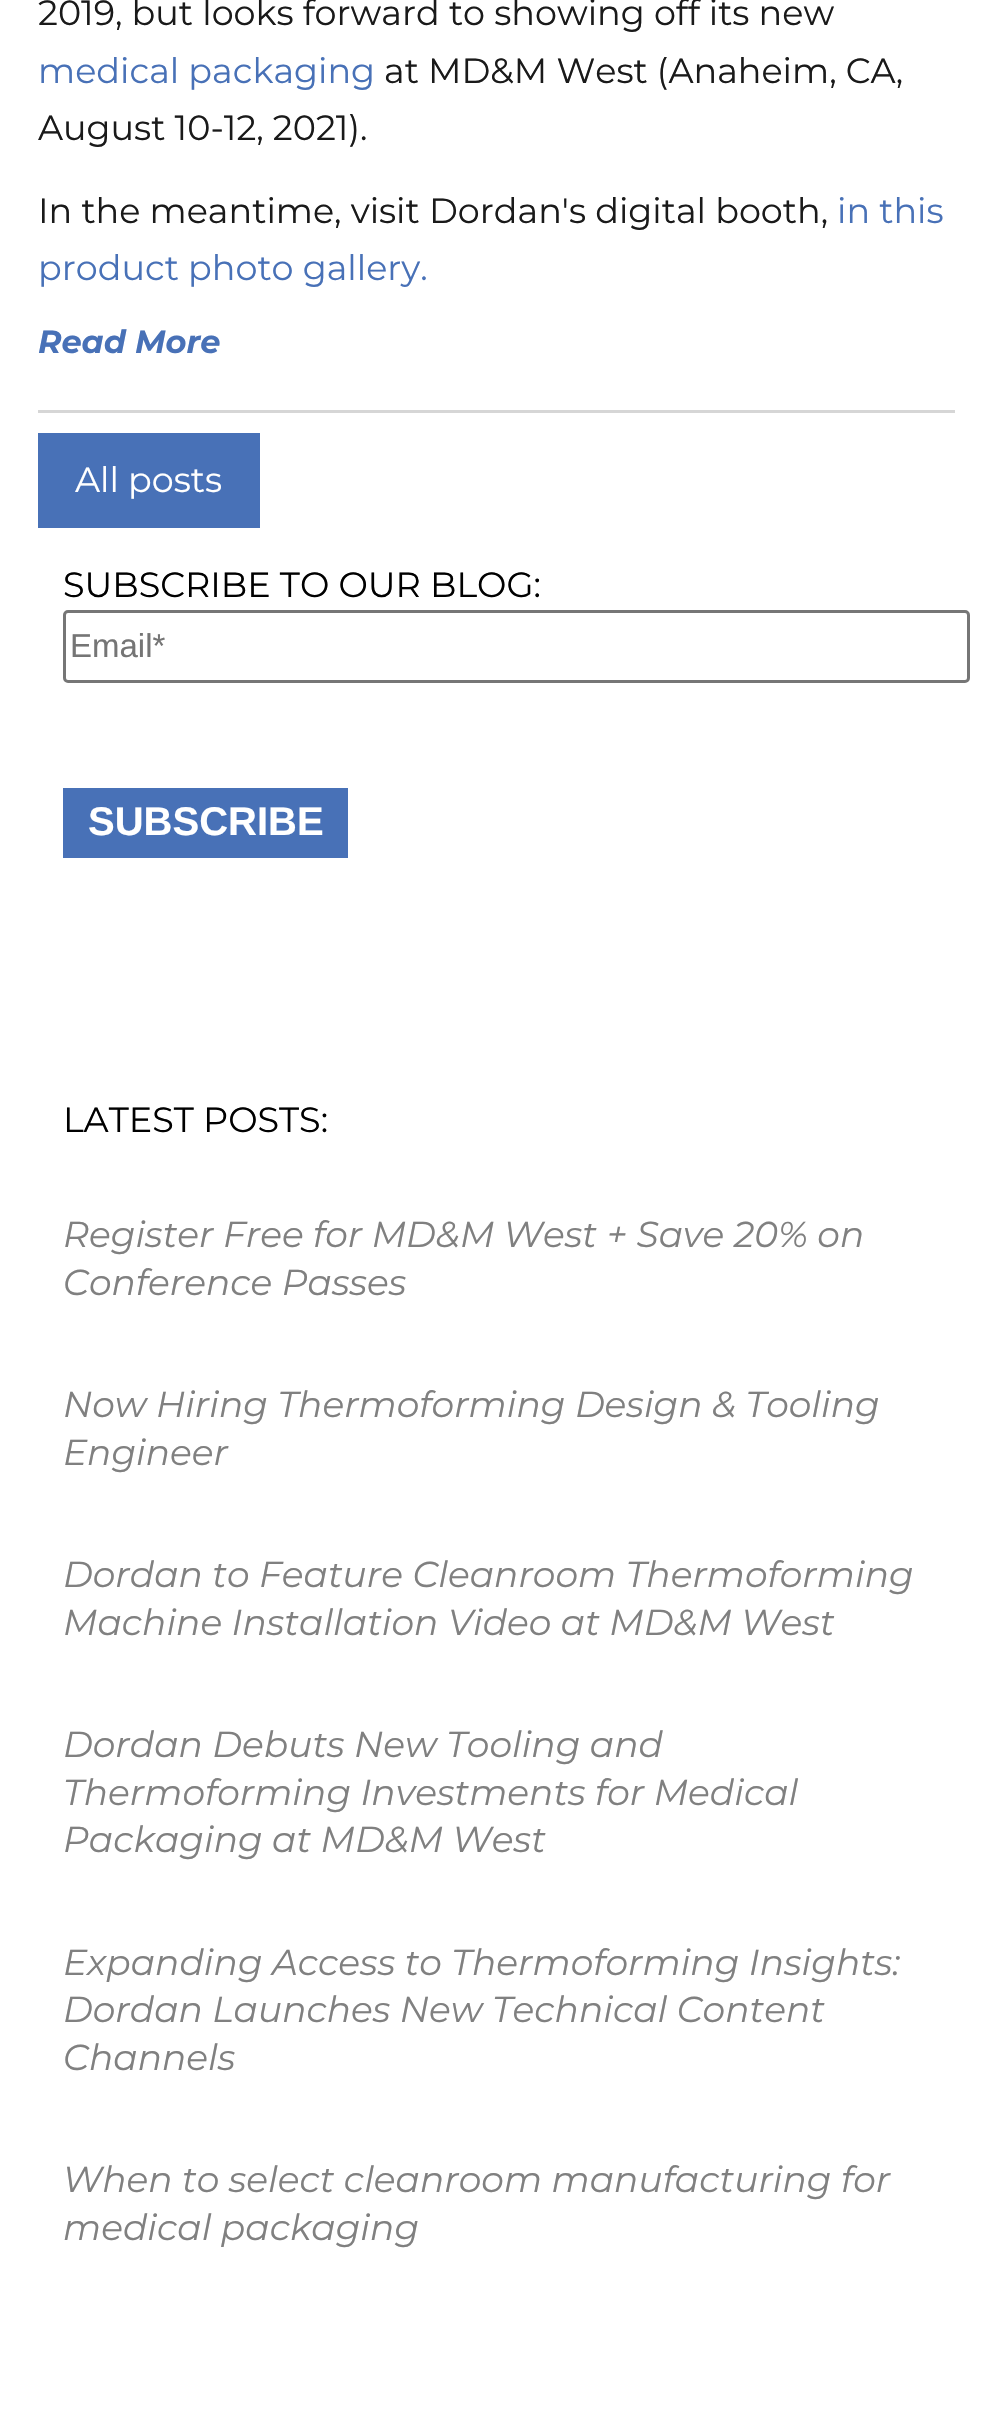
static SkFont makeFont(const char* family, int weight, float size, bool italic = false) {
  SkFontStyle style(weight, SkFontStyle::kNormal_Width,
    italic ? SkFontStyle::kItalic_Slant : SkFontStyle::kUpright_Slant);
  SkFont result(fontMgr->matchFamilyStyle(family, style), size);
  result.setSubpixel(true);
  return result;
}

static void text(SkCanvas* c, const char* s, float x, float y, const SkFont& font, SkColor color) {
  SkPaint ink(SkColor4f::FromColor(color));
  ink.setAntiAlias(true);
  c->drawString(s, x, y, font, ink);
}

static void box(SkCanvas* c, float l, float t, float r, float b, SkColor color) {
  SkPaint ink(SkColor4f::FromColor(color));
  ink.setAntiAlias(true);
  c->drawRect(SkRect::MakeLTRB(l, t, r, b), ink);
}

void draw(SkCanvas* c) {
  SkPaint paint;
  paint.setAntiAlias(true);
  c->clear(0xffffffff);
  box(c, 38, 410, 955, 413, 0xffd6d6d6);
  SkFont face1 = makeFont("Montserrat", 400, 35);
  text(c, "2019, but looks forward to showing off its new", 38, 25, face1, 0xff1a1a1a);
  text(c, "medical packaging", 38, 83, face1, 0xff4871b7);
  text(c, "at MD&M West (Anaheim, CA,", 384, 83, face1, 0xff1a1a1a);
  text(c, "August 10-12, 2021).", 38, 140, face1, 0xff1a1a1a);
  text(c, "In the meantime, visit Dordan's digital booth,", 38, 223, face1, 0xff1a1a1a);
  text(c, "in this", 837, 223, face1, 0xff4871b7);
  text(c, "product photo gallery.", 38, 280, face1, 0xff4871b7);
  SkFont face2 = makeFont("Montserrat", 700, 32, true);
  text(c, "Read More", 38, 353, face2, 0xff4871b7);
  box(c, 38, 433, 260, 528, 0xff4871b7);
  text(c, "All posts", 75, 492, face1, 0xffffffff);
  text(c, "SUBSCRIBE TO OUR BLOG:", 63, 597, face1, 0xff000000);
  paint.setStyle(SkPaint::kStroke_Style);
  paint.setStrokeWidth(3);
  paint.setColor(0xff767676);
  c->drawRoundRect(SkRect::MakeLTRB(64.5f, 611.5f, 968.5f, 681.5f), 3.5f, 3.5f, paint);
  SkFont face3 = makeFont("Liberation Sans", 400, 33);
  text(c, "Email*", 70, 657, face3, 0xff757575);
  box(c, 63, 788, 348, 858, 0xff4871b7);
  SkFont face4 = makeFont("Liberation Sans", 700, 40);
  text(c, "SUBSCRIBE", 88, 835, face4, 0xffffffff);
  text(c, "LATEST POSTS:", 63, 1132, face1, 0xff000000);
  SkFont face5 = makeFont("Montserrat", 400, 36, true);
  text(c, "Register Free for MD&M West + Save 20% on", 63, 1247, face5, 0xff808080);
  text(c, "Conference Passes", 63, 1295, face5, 0xff808080);
  text(c, "Now Hiring Thermoforming Design & Tooling", 63, 1417, face5, 0xff808080);
  text(c, "Engineer", 63, 1465, face5, 0xff808080);
  text(c, "Dordan to Feature Cleanroom Thermoforming", 63, 1587, face5, 0xff808080);
  text(c, "Machine Installation Video at MD&M West", 63, 1635, face5, 0xff808080);
  text(c, "Dordan Debuts New Tooling and", 63, 1757, face5, 0xff808080);
  text(c, "Thermoforming Investments for Medical", 63, 1805, face5, 0xff808080);
  text(c, "Packaging at MD&M West", 63, 1852, face5, 0xff808080);
  text(c, "Expanding Access to Thermoforming Insights:", 63, 1975, face5, 0xff808080);
  text(c, "Dordan Launches New Technical Content", 63, 2022, face5, 0xff808080);
  text(c, "Channels", 63, 2070, face5, 0xff808080);
  text(c, "When to select cleanroom manufacturing for", 63, 2192, face5, 0xff808080);
  text(c, "medical packaging", 63, 2240, face5, 0xff808080);
}
